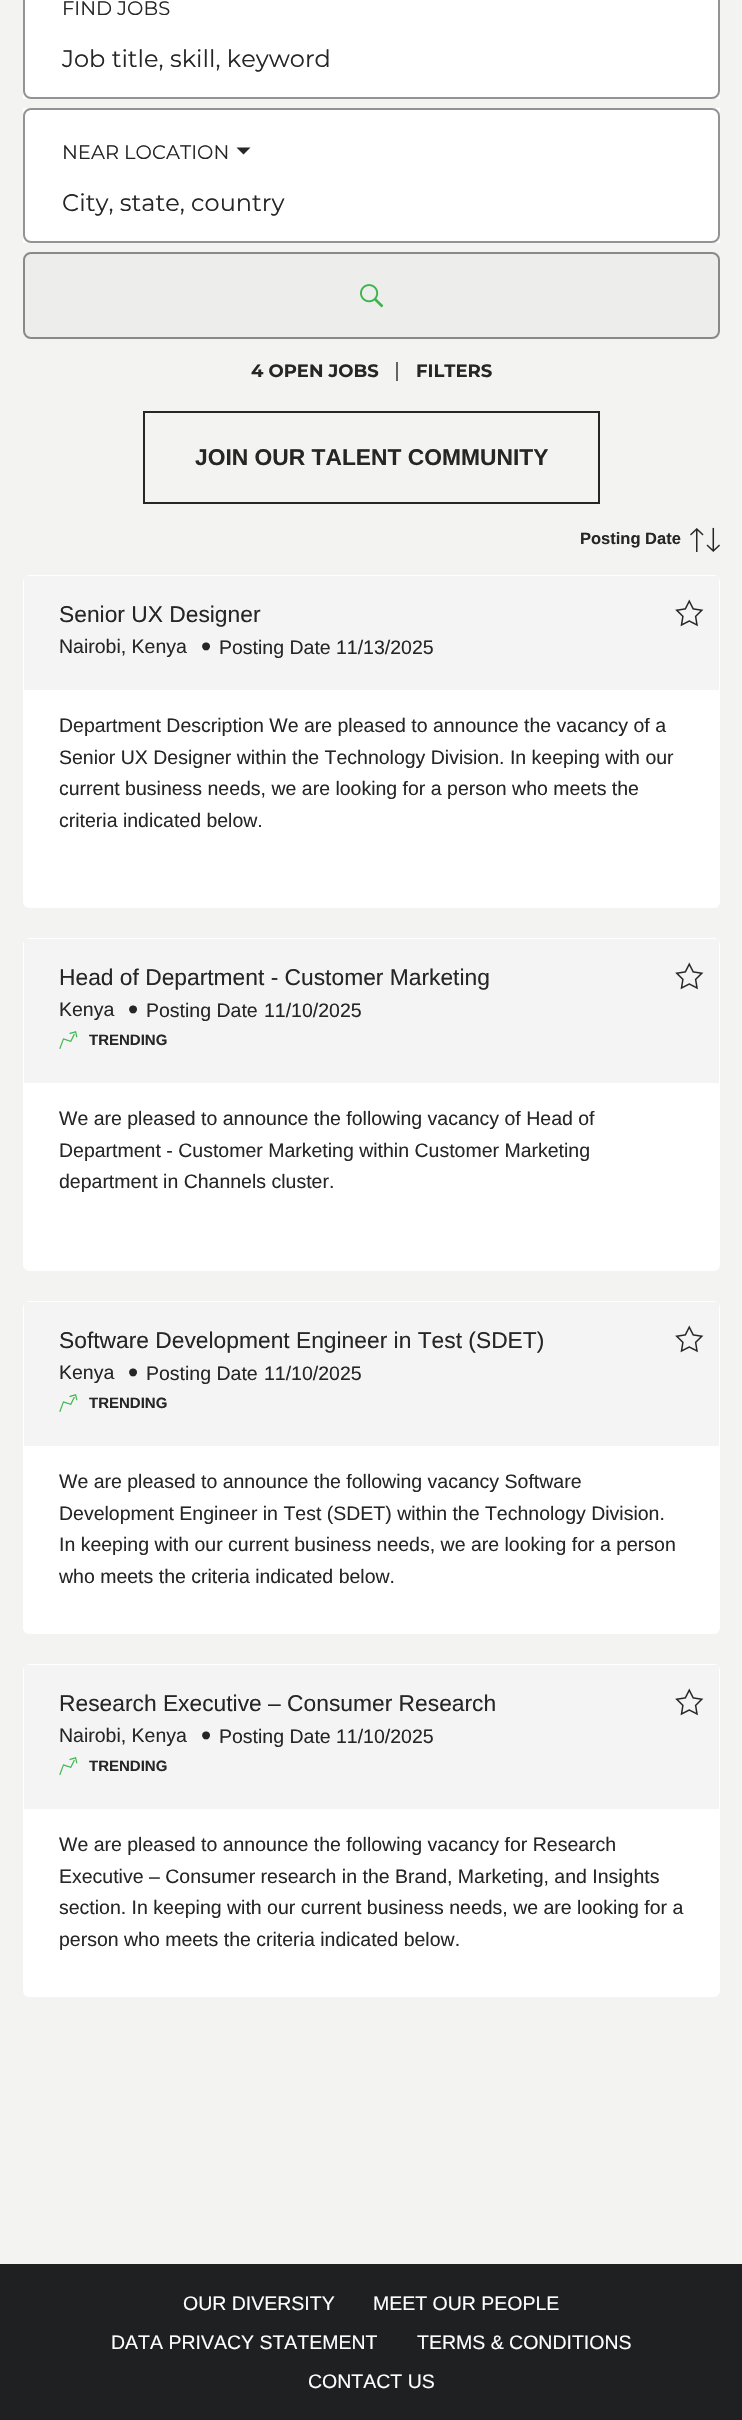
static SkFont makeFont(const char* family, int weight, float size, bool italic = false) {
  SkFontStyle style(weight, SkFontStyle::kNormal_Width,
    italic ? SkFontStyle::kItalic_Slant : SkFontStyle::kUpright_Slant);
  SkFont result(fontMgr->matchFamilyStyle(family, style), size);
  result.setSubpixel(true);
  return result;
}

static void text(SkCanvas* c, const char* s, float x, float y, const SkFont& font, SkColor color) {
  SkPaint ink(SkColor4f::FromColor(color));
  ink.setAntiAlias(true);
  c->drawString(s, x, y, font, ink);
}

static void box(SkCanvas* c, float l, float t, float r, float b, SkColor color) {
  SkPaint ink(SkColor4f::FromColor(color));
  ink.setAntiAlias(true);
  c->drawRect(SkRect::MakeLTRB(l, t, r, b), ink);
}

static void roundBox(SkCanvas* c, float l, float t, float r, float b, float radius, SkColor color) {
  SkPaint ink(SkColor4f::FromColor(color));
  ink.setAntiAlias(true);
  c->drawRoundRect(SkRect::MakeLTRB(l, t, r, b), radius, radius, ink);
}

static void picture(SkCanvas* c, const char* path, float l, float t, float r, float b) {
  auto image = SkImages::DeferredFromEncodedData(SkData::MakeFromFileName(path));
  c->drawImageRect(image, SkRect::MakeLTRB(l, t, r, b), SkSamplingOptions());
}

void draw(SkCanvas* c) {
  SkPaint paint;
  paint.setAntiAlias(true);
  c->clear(0xfff3f3f1);
  box(c, 23, 0, 720, 99, 0xffffffff);
  paint.setStyle(SkPaint::kStroke_Style);
  paint.setStrokeWidth(2);
  paint.setColor(0xff939393);
  c->drawRoundRect(SkRect::MakeLTRB(24, -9, 719, 98), 7, 7, paint);
  SkFont face1 = makeFont("Montserrat", 400, 19.5f);
  text(c, "FIND JOBS", 62, 15, face1, 0xff262626);
  SkFont face2 = makeFont("Montserrat", 400, 24);
  text(c, "Job title, skill, keyword", 62, 67, face2, 0xff262626);
  box(c, 23, 108, 720, 243, 0xffffffff);
  c->drawRoundRect(SkRect::MakeLTRB(24, 109, 719, 242), 7, 7, paint);
  text(c, "NEAR LOCATION", 62, 159, face1, 0xff262626);
  paint.setStyle(SkPaint::kFill_Style);
  paint.setColor(0xff262626);
  c->drawPath(SkPathBuilder().moveTo(243.5f, 154.5f).lineTo(236.5f, 147.5f).lineTo(250.5f, 147.5f).close().detach(), paint);
  text(c, "City, state, country", 62, 211, face2, 0xff262626);
  roundBox(c, 23, 252, 720, 339, 8, 0xffededeb);
  paint.setStyle(SkPaint::kStroke_Style);
  paint.setColor(0x80262626);
  c->drawRoundRect(SkRect::MakeLTRB(24, 253, 719, 338), 7, 7, paint);
  picture(c, "img_01.png", 360, 284, 384, 308);
  SkFont face3 = makeFont("Montserrat", 700, 18);
  text(c, "4 OPEN JOBS", 251, 377, face3, 0xff262626);
  box(c, 396, 362, 398, 381, 0xff646463);
  text(c, "FILTERS", 416, 377, face3, 0xff262626);
  paint.setColor(0xff262626);
  c->drawRect(SkRect::MakeLTRB(144, 412, 599, 503), paint);
  SkFont face4 = makeFont("Liberation Sans", 700, 22.8f);
  text(c, "JOIN OUR TALENT COMMUNITY", 195, 465, face4, 0xff262626);
  SkFont face5 = makeFont("Liberation Sans", 700, 16.5f);
  text(c, "Posting Date", 580, 544, face5, 0xff262626);
  picture(c, "img_02.png", 690, 527, 720, 552);
  paint.setStyle(SkPaint::kFill_Style);
  paint.setColor(0xffffffff);
  c->drawRoundRect(SkRect::MakeLTRB(24, 576, 719, 907), 5, 5, paint);
  paint.setStyle(SkPaint::kStroke_Style);
  c->drawRoundRect(SkRect::MakeLTRB(24, 576, 719, 907), 5, 5, paint);
  box(c, 24, 576, 719, 690, 0xfff4f4f4);
  SkFont face6 = makeFont("Liberation Sans", 400, 22.8f);
  text(c, "Senior UX Designer", 59, 622, face6, 0xff262626);
  SkFont face7 = makeFont("Liberation Sans", 400, 19.5f);
  text(c, "Nairobi, Kenya", 59, 653, face7, 0xff262626);
  SkFont face8 = makeFont("Liberation Sans", 400, 29);
  text(c, "•", 201, 656, face8, 0xff262626);
  text(c, "Posting Date", 219, 654, face7, 0xff262626);
  text(c, "11/13/2025", 336, 654, face7, 0xff262626);
  text(c, "Department Description We are pleased to announce the vacancy of a", 59, 732, face7, 0xff262626);
  text(c, "Senior UX Designer within the Technology Division. In keeping with our", 59, 764, face7, 0xff262626);
  text(c, "current business needs, we are looking for a person who meets the", 59, 795, face7, 0xff262626);
  text(c, "criteria indicated below.", 59, 827, face7, 0xff262626);
  picture(c, "img_03.png", 675, 599, 704, 627);
  paint.setStyle(SkPaint::kFill_Style);
  c->drawRoundRect(SkRect::MakeLTRB(24, 939, 719, 1270), 5, 5, paint);
  paint.setStyle(SkPaint::kStroke_Style);
  c->drawRoundRect(SkRect::MakeLTRB(24, 939, 719, 1270), 5, 5, paint);
  box(c, 24, 939, 719, 1083, 0xfff4f4f4);
  text(c, "Head of Department - Customer Marketing", 59, 985, face6, 0xff262626);
  text(c, "Kenya", 59, 1016, face7, 0xff262626);
  text(c, "•", 128, 1019, face8, 0xff262626);
  text(c, "Posting Date", 146, 1017, face7, 0xff262626);
  text(c, "11/10/2025", 264, 1017, face7, 0xff262626);
  picture(c, "img_04.png", 59, 1031, 78, 1049);
  SkFont face9 = makeFont("Liberation Sans", 700, 15);
  text(c, "TRENDING", 89, 1045, face9, 0xff262626);
  text(c, "We are pleased to announce the following vacancy of Head of", 59, 1125, face7, 0xff262626);
  text(c, "Department - Customer Marketing within Customer Marketing", 59, 1157, face7, 0xff262626);
  text(c, "department in Channels cluster.", 59, 1188, face7, 0xff262626);
  picture(c, "img_03.png", 675, 962, 704, 990);
  paint.setStyle(SkPaint::kFill_Style);
  c->drawRoundRect(SkRect::MakeLTRB(24, 1302, 719, 1633), 5, 5, paint);
  paint.setStyle(SkPaint::kStroke_Style);
  c->drawRoundRect(SkRect::MakeLTRB(24, 1302, 719, 1633), 5, 5, paint);
  box(c, 24, 1302, 719, 1446, 0xfff4f4f4);
  text(c, "Software Development Engineer in Test (SDET)", 59, 1348, face6, 0xff262626);
  text(c, "Kenya", 59, 1379, face7, 0xff262626);
  text(c, "•", 128, 1382, face8, 0xff262626);
  text(c, "Posting Date", 146, 1380, face7, 0xff262626);
  text(c, "11/10/2025", 264, 1380, face7, 0xff262626);
  picture(c, "img_04.png", 59, 1394, 78, 1412);
  text(c, "TRENDING", 89, 1408, face9, 0xff262626);
  text(c, "We are pleased to announce the following vacancy Software", 59, 1488, face7, 0xff262626);
  text(c, "Development Engineer in Test (SDET) within the Technology Division.", 59, 1520, face7, 0xff262626);
  text(c, "In keeping with our current business needs, we are looking for a person", 59, 1551, face7, 0xff262626);
  text(c, "who meets the criteria indicated below.", 59, 1583, face7, 0xff262626);
  picture(c, "img_03.png", 675, 1325, 704, 1353);
  paint.setStyle(SkPaint::kFill_Style);
  c->drawRoundRect(SkRect::MakeLTRB(24, 1665, 719, 1996), 5, 5, paint);
  paint.setStyle(SkPaint::kStroke_Style);
  c->drawRoundRect(SkRect::MakeLTRB(24, 1665, 719, 1996), 5, 5, paint);
  box(c, 24, 1665, 719, 1809, 0xfff4f4f4);
  text(c, "Research Executive – Consumer Research", 59, 1711, face6, 0xff262626);
  text(c, "Nairobi, Kenya", 59, 1742, face7, 0xff262626);
  text(c, "•", 201, 1745, face8, 0xff262626);
  text(c, "Posting Date", 219, 1743, face7, 0xff262626);
  text(c, "11/10/2025", 336, 1743, face7, 0xff262626);
  picture(c, "img_04.png", 59, 1757, 78, 1775);
  text(c, "TRENDING", 89, 1771, face9, 0xff262626);
  text(c, "We are pleased to announce the following vacancy for Research", 59, 1851, face7, 0xff262626);
  text(c, "Executive – Consumer research in the Brand, Marketing, and Insights", 59, 1883, face7, 0xff262626);
  text(c, "section. In keeping with our current business needs, we are looking for a", 59, 1914, face7, 0xff262626);
  text(c, "person who meets the criteria indicated below.", 59, 1946, face7, 0xff262626);
  picture(c, "img_03.png", 675, 1688, 704, 1716);
  box(c, 0, 2264, 742, 2420, 0xff1f2021);
  text(c, "OUR DIVERSITY", 183, 2310, face7, 0xffffffff);
  text(c, "MEET OUR PEOPLE", 373, 2310, face7, 0xffffffff);
  text(c, "DATA PRIVACY STATEMENT", 111, 2349, face7, 0xffffffff);
  text(c, "TERMS & CONDITIONS", 417, 2349, face7, 0xffffffff);
  text(c, "CONTACT US", 308, 2388, face7, 0xffffffff);
}
